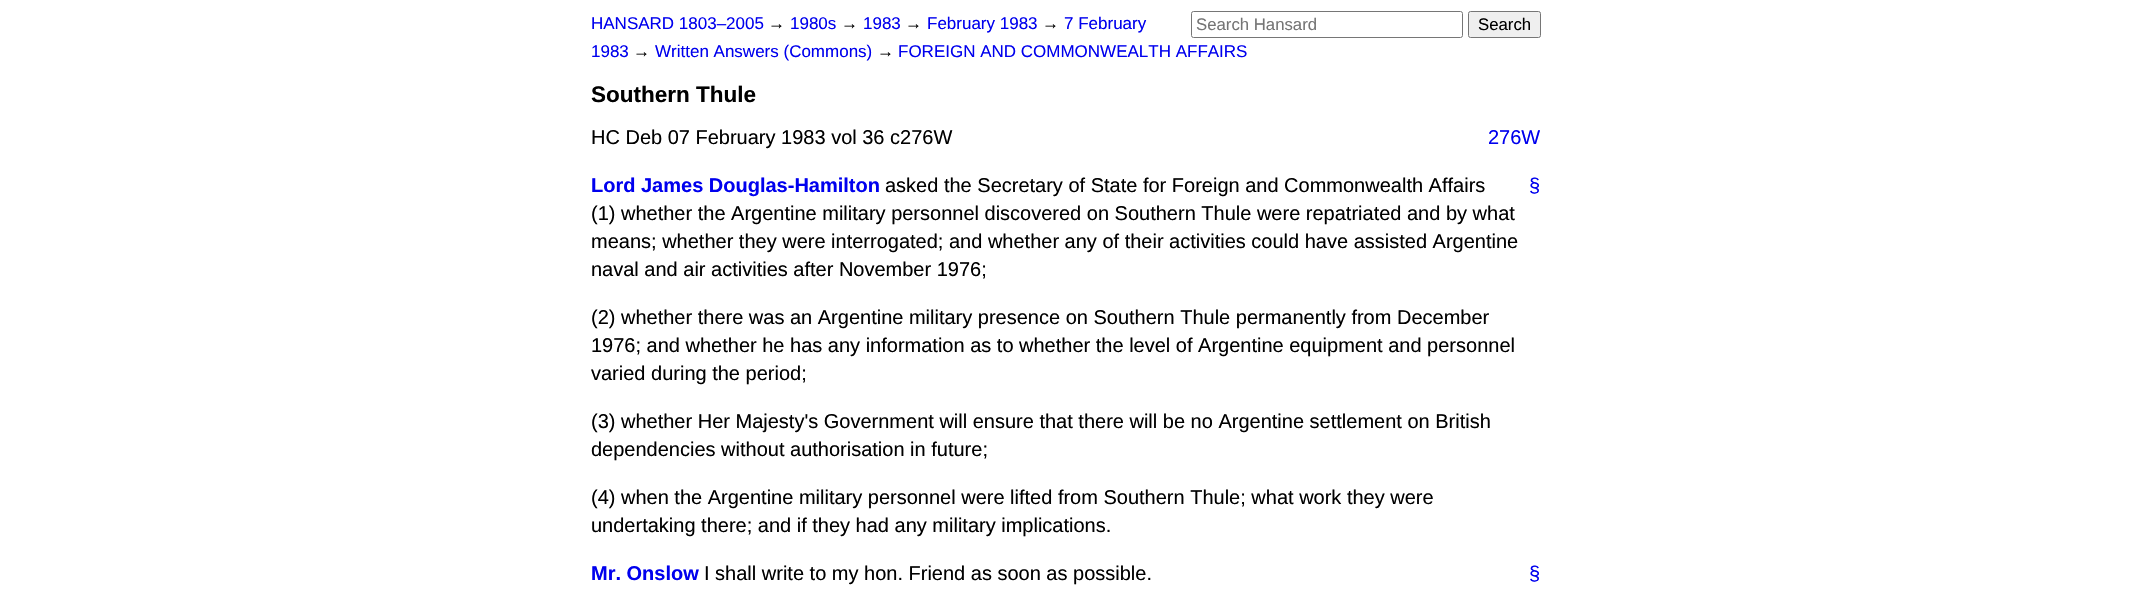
static SkFont makeFont(const char* family, int weight, float size, bool italic = false) {
  SkFontStyle style(weight, SkFontStyle::kNormal_Width,
    italic ? SkFontStyle::kItalic_Slant : SkFontStyle::kUpright_Slant);
  SkFont result(fontMgr->matchFamilyStyle(family, style), size);
  result.setSubpixel(true);
  return result;
}

static void text(SkCanvas* c, const char* s, float x, float y, const SkFont& font, SkColor color) {
  SkPaint ink(SkColor4f::FromColor(color));
  ink.setAntiAlias(true);
  c->drawString(s, x, y, font, ink);
}

void draw(SkCanvas* c) {
  SkPaint paint;
  paint.setAntiAlias(true);
  c->clear(0xffffffff);
  SkFont face1 = makeFont("Liberation Sans", 400, 17);
  text(c, "HANSARD 1803–2005", 591, 29, face1, 0xff0000ee);
  text(c, "→", 768, 29, face1, 0xff000000);
  text(c, "1980s", 790, 29, face1, 0xff0000ee);
  text(c, "→", 841, 29, face1, 0xff000000);
  text(c, "1983", 863, 29, face1, 0xff0000ee);
  text(c, "→", 905, 29, face1, 0xff000000);
  text(c, "February 1983", 927, 29, face1, 0xff0000ee);
  text(c, "→", 1042, 29, face1, 0xff000000);
  text(c, "7 February", 1064, 29, face1, 0xff0000ee);
  text(c, "1983", 591, 57, face1, 0xff0000ee);
  text(c, "→", 633, 57, face1, 0xff000000);
  text(c, "Written Answers (Commons)", 655, 57, face1, 0xff0000ee);
  text(c, "→", 877, 57, face1, 0xff000000);
  text(c, "FOREIGN AND COMMONWEALTH AFFAIRS", 898, 57, face1, 0xff0000ee);
  paint.setStyle(SkPaint::kStroke_Style);
  paint.setStrokeWidth(1);
  paint.setColor(0xff767676);
  c->drawRoundRect(SkRect::MakeLTRB(1191.5f, 11.5f, 1462.5f, 37.5f), 2, 2, paint);
  SkFont face2 = makeFont("Liberation Sans", 400, 16.75f);
  text(c, "Search Hansard", 1196, 30, face2, 0xff757575);
  paint.setStyle(SkPaint::kFill_Style);
  paint.setColor(0xffefefef);
  c->drawRoundRect(SkRect::MakeLTRB(1468.5f, 11.5f, 1540.5f, 37.5f), 2, 2, paint);
  paint.setStyle(SkPaint::kStroke_Style);
  paint.setColor(0xff767676);
  c->drawRoundRect(SkRect::MakeLTRB(1468.5f, 11.5f, 1540.5f, 37.5f), 2, 2, paint);
  text(c, "Search", 1478, 30, face2, 0xff000000);
  SkFont face3 = makeFont("Liberation Sans", 700, 22.5f);
  text(c, "Southern Thule", 591, 102, face3, 0xff000000);
  SkFont face4 = makeFont("Liberation Sans", 400, 20);
  text(c, "HC Deb 07 February 1983 vol 36 c276W", 591, 144, face4, 0xff000000);
  text(c, "276W", 1488, 144, face4, 0xff0000ee);
  SkFont face5 = makeFont("Liberation Sans", 700, 20);
  text(c, "Lord James Douglas-Hamilton", 591, 192, face5, 0xff0000ee);
  text(c, "asked the Secretary of State for Foreign and Commonwealth Affairs", 885, 192, face4, 0xff000000);
  text(c, "§", 1529, 192, face4, 0xff0000ee);
  text(c, "(1) whether the Argentine military personnel discovered on Southern Thule were repatriated and by what", 591, 220, face4, 0xff000000);
  text(c, "means; whether they were interrogated; and whether any of their activities could have assisted Argentine", 591, 248, face4, 0xff000000);
  text(c, "naval and air activities after November 1976;", 591, 276, face4, 0xff000000);
  text(c, "(2) whether there was an Argentine military presence on Southern Thule permanently from December", 591, 324, face4, 0xff000000);
  text(c, "1976; and whether he has any information as to whether the level of Argentine equipment and personnel", 591, 352, face4, 0xff000000);
  text(c, "varied during the period;", 591, 380, face4, 0xff000000);
  text(c, "(3) whether Her Majesty's Government will ensure that there will be no Argentine settlement on British", 591, 428, face4, 0xff000000);
  text(c, "dependencies without authorisation in future;", 591, 456, face4, 0xff000000);
  text(c, "(4) when the Argentine military personnel were lifted from Southern Thule; what work they were", 591, 504, face4, 0xff000000);
  text(c, "undertaking there; and if they had any military implications.", 591, 532, face4, 0xff000000);
  text(c, "Mr. Onslow", 591, 580, face5, 0xff0000ee);
  text(c, "I shall write to my hon. Friend as soon as possible.", 704, 580, face4, 0xff000000);
  text(c, "§", 1529, 580, face4, 0xff0000ee);
}
